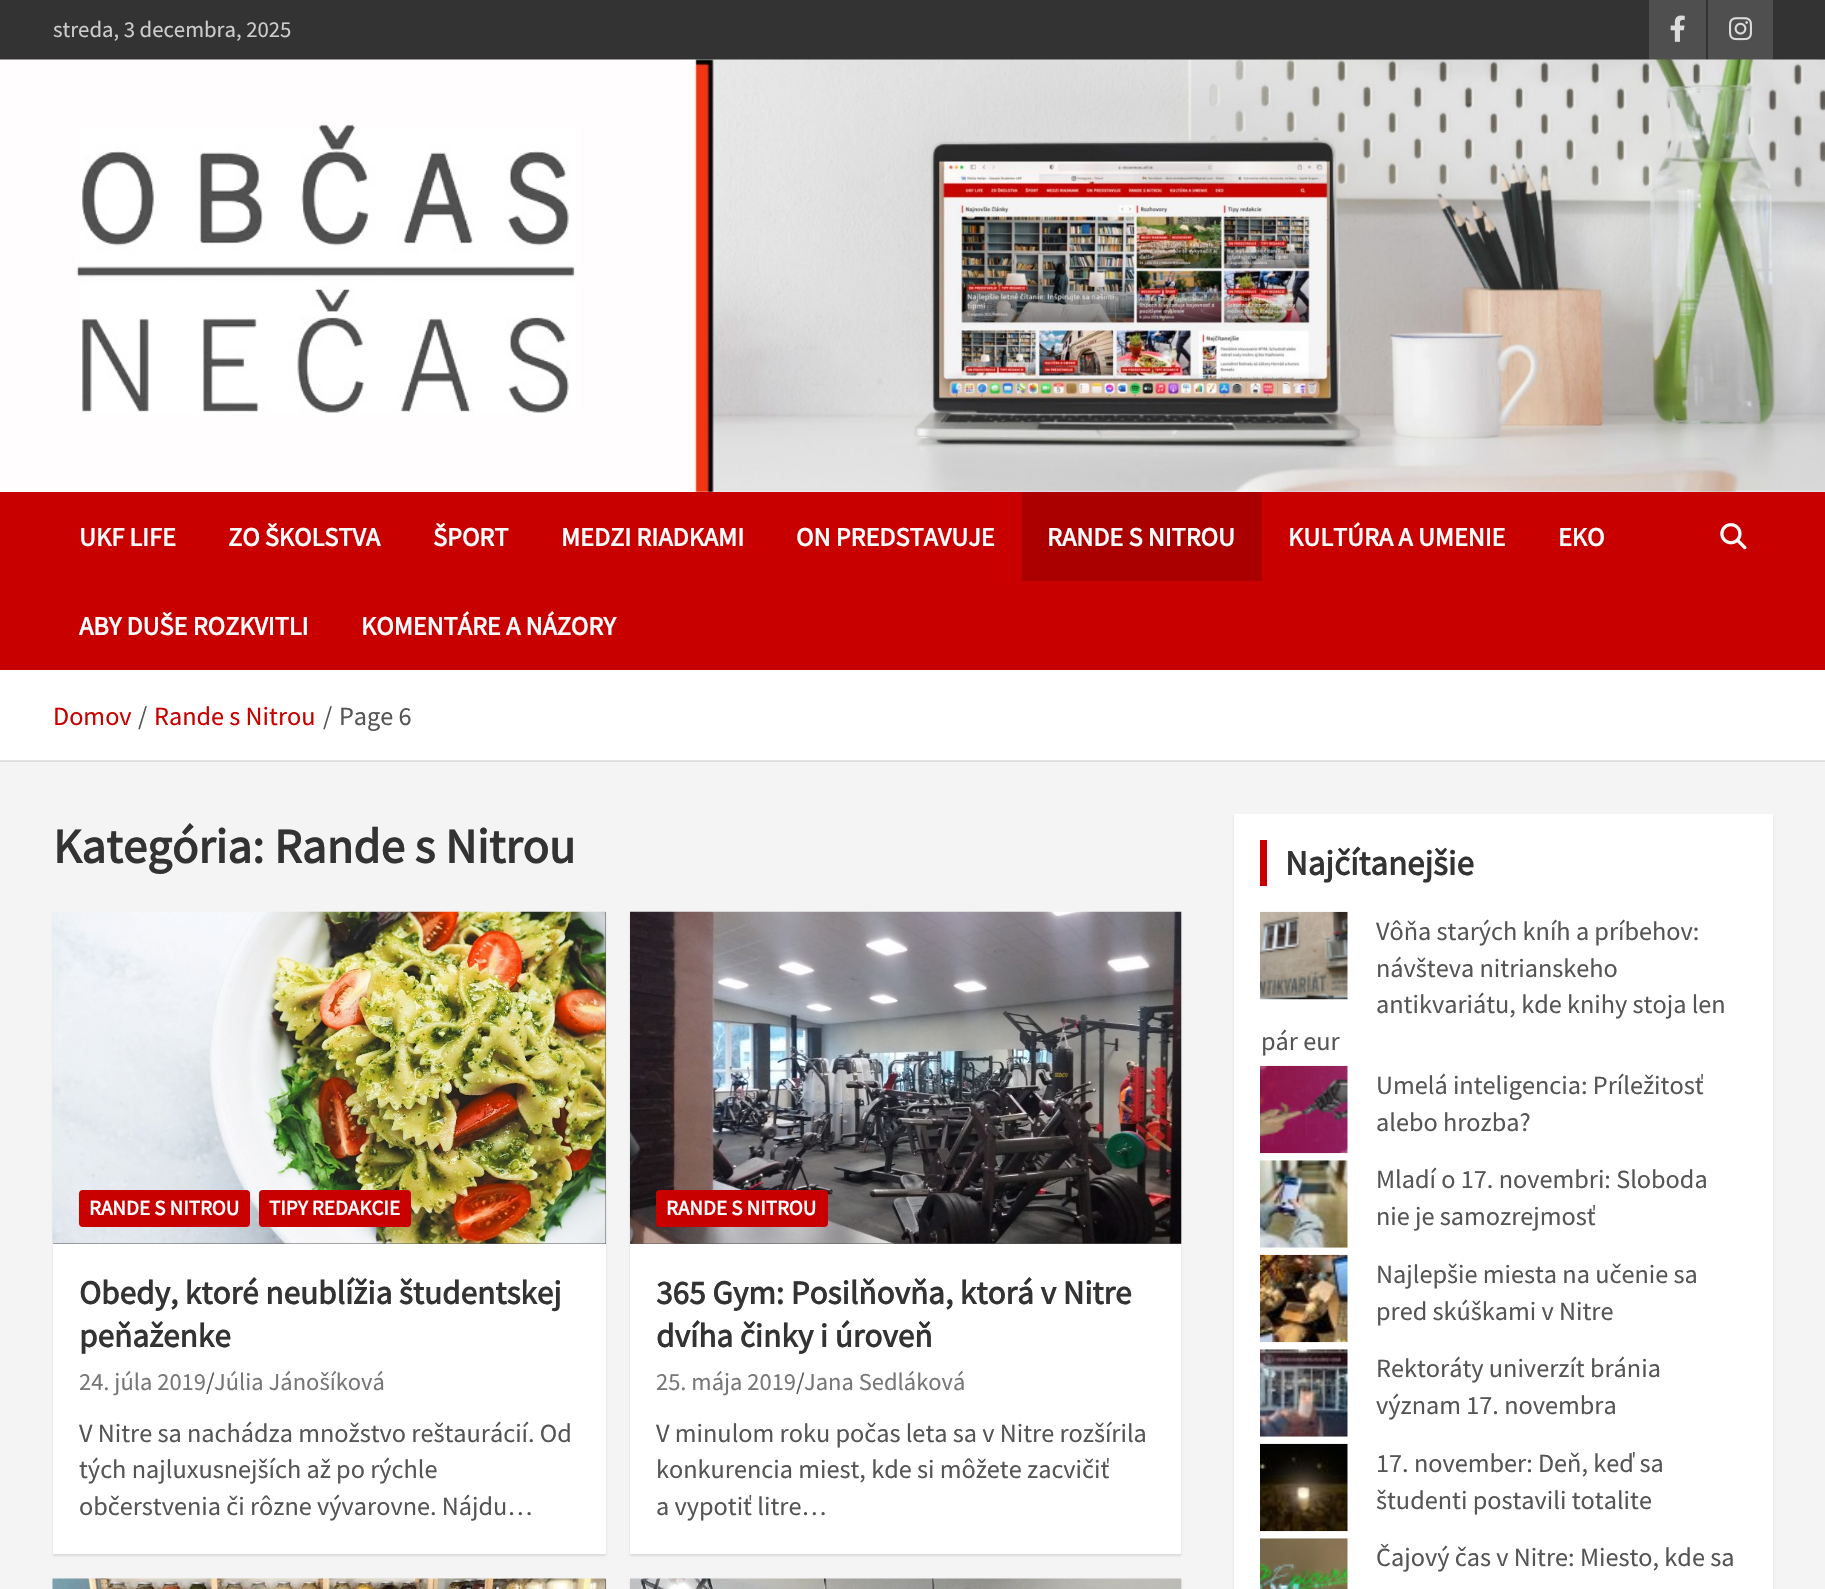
static SkFont makeFont(const char* family, int weight, float size, bool italic = false) {
  SkFontStyle style(weight, SkFontStyle::kNormal_Width,
    italic ? SkFontStyle::kItalic_Slant : SkFontStyle::kUpright_Slant);
  SkFont result(fontMgr->matchFamilyStyle(family, style), size);
  result.setSubpixel(true);
  return result;
}

static void text(SkCanvas* c, const char* s, float x, float y, const SkFont& font, SkColor color) {
  SkPaint ink(SkColor4f::FromColor(color));
  ink.setAntiAlias(true);
  c->drawString(s, x, y, font, ink);
}

static void box(SkCanvas* c, float l, float t, float r, float b, SkColor color) {
  SkPaint ink(SkColor4f::FromColor(color));
  ink.setAntiAlias(true);
  c->drawRect(SkRect::MakeLTRB(l, t, r, b), ink);
}

static void roundBox(SkCanvas* c, float l, float t, float r, float b, float radius, SkColor color) {
  SkPaint ink(SkColor4f::FromColor(color));
  ink.setAntiAlias(true);
  c->drawRoundRect(SkRect::MakeLTRB(l, t, r, b), radius, radius, ink);
}

static void picture(SkCanvas* c, const char* path, float l, float t, float r, float b) {
  auto image = SkImages::DeferredFromEncodedData(SkData::MakeFromFileName(path));
  c->drawImageRect(image, SkRect::MakeLTRB(l, t, r, b), SkSamplingOptions());
}

void draw(SkCanvas* c) {
  SkPaint paint;
  paint.setAntiAlias(true);
  c->clear(0xfff4f4f4);
  box(c, 0, 761, 1825, 762, 0xffdcdcdc);
  box(c, 0, 0, 1825, 60, 0xff333333);
  SkFont face1 = makeFont("Source Sans Pro", 400, 22.75f);
  text(c, "streda, 3 decembra, 2025", 53, 37, face1, 0xffcccccc);
  box(c, 1649, 0, 1706, 60, 0xff4f4f4f);
  picture(c, "img_01.png", 1670, 15, 1685, 42);
  box(c, 1708, 0, 1773, 60, 0xff4f4f4f);
  picture(c, "img_02.png", 1729, 17, 1752, 41);
  picture(c, "img_03.png", 0, 59, 1825, 492);
  picture(c, "img_04.png", 76, 124, 578, 413);
  box(c, 0, 492, 1825, 670, 0xffc80000);
  SkFont face2 = makeFont("Source Sans Pro", 700, 26.25f);
  text(c, "UKF LIFE", 79, 546, face2, 0xffffffff);
  text(c, "ZO ŠKOLSTVA", 228, 546, face2, 0xffffffff);
  text(c, "ŠPORT", 433, 546, face2, 0xffffffff);
  text(c, "MEDZI RIADKAMI", 561, 546, face2, 0xffffffff);
  text(c, "ON PREDSTAVUJE", 796, 546, face2, 0xffffffff);
  box(c, 1022, 492, 1262, 581, 0xffaa0000);
  text(c, "RANDE S NITROU", 1047, 546, face2, 0xffffffff);
  text(c, "KULTÚRA A UMENIE", 1288, 546, face2, 0xffffffff);
  text(c, "EKO", 1558, 546, face2, 0xffffffff);
  text(c, "ABY DUŠE ROZKVITLI", 79, 635, face2, 0xffffffff);
  text(c, "KOMENTÁRE A NÁZORY", 361, 635, face2, 0xffffffff);
  picture(c, "img_05.png", 1720, 523, 1747, 550);
  box(c, 0, 670, 1825, 760, 0xffffffff);
  box(c, 0, 760, 1825, 761, 0xffe6e6e6);
  SkFont face3 = makeFont("Source Sans Pro", 400, 26.25f);
  text(c, "Domov", 53, 725, face3, 0xffc80000);
  text(c, "/", 138, 725, face3, 0xff555555);
  text(c, "Rande s Nitrou", 154, 725, face3, 0xffc80000);
  text(c, "/", 323, 725, face3, 0xff555555);
  text(c, "Page 6", 339, 725, face3, 0xff555555);
  SkFont face4 = makeFont("Source Sans Pro", 700, 49);
  text(c, "Kategória: Rande s Nitrou", 53, 863, face4, 0xff333333);
  paint.setColor(0x1a000000);
  paint.setMaskFilter(SkMaskFilter::MakeBlur(kNormal_SkBlurStyle, 1));
  c->drawRect(SkRect::MakeLTRB(53, 914, 606, 1556), paint);
  paint.setMaskFilter(nullptr);
  box(c, 53, 1244, 606, 1554, 0xffffffff);
  box(c, 53, 912, 606, 1244, 0xff555555);
  picture(c, "img_06.png", 52, 911, 606, 1244);
  roundBox(c, 79, 1190, 250, 1227, 4, 0xffc80000);
  SkFont face5 = makeFont("Source Sans Pro", 700, 21);
  text(c, "RANDE S NITROU", 89, 1215, face5, 0xffffffff);
  roundBox(c, 259, 1190, 411, 1227, 4, 0xffc80000);
  text(c, "TIPY REDAKCIE", 269, 1215, face5, 0xffffffff);
  SkFont face6 = makeFont("Source Sans Pro", 700, 33.25f);
  text(c, "Obedy, ktoré neublížia študentskej", 79, 1304, face6, 0xff333333);
  text(c, "peňaženke", 79, 1347, face6, 0xff333333);
  SkFont face7 = makeFont("Source Sans Pro", 400, 24.5f);
  text(c, "24. júla 2019", 79, 1390, face7, 0xff777777);
  text(c, "/", 206, 1390, face7, 0xff555555);
  text(c, "Júlia Jánošíková", 214, 1390, face7, 0xff777777);
  text(c, "V Nitre sa nachádza množstvo reštaurácií. Od", 79, 1442, face3, 0xff555555);
  text(c, "tých najluxusnejších až po rýchle", 79, 1478, face3, 0xff555555);
  text(c, "občerstvenia či rôzne vývarovne. Nájdu…", 79, 1515, face3, 0xff555555);
  paint.setMaskFilter(SkMaskFilter::MakeBlur(kNormal_SkBlurStyle, 1));
  c->drawRect(SkRect::MakeLTRB(630, 914, 1181, 1556), paint);
  paint.setMaskFilter(nullptr);
  box(c, 630, 1244, 1181, 1554, 0xffffffff);
  box(c, 630, 1243, 1181, 1244, 0xff555555);
  picture(c, "img_07.png", 630, 911, 1182, 1244);
  roundBox(c, 656, 1190, 828, 1227, 4, 0xffc80000);
  text(c, "RANDE S NITROU", 666, 1215, face5, 0xffffffff);
  text(c, "365 Gym: Posilňovňa, ktorá v Nitre", 656, 1304, face6, 0xff333333);
  text(c, "dvíha činky i úroveň", 656, 1347, face6, 0xff333333);
  text(c, "25. mája 2019", 656, 1390, face7, 0xff777777);
  text(c, "/", 796, 1390, face7, 0xff555555);
  text(c, "Jana Sedláková", 804, 1390, face7, 0xff777777);
  text(c, "V minulom roku počas leta sa v Nitre rozšírila", 656, 1442, face3, 0xff555555);
  text(c, "konkurencia miest, kde si môžete zacvičiť", 656, 1478, face3, 0xff555555);
  text(c, "a vypotiť litre…", 656, 1515, face3, 0xff555555);
  paint.setMaskFilter(SkMaskFilter::MakeBlur(kNormal_SkBlurStyle, 1));
  c->drawRect(SkRect::MakeLTRB(53, 1580, 606, 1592), paint);
  paint.setMaskFilter(nullptr);
  box(c, 605, 1579, 606, 1589, 0xff555555);
  picture(c, "img_08.png", 52, 1578, 606, 1589);
  paint.setMaskFilter(SkMaskFilter::MakeBlur(kNormal_SkBlurStyle, 1));
  c->drawRect(SkRect::MakeLTRB(630, 1580, 1181, 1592), paint);
  paint.setMaskFilter(nullptr);
  picture(c, "img_09.png", 630, 1578, 1182, 1589);
  paint.setMaskFilter(SkMaskFilter::MakeBlur(kNormal_SkBlurStyle, 1));
  c->drawRect(SkRect::MakeLTRB(1234, 816, 1773, 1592), paint);
  paint.setMaskFilter(nullptr);
  box(c, 1234, 814, 1773, 1589, 0xffffffff);
  box(c, 1260, 840, 1267, 886, 0xffc80000);
  SkFont face8 = makeFont("Source Sans Pro", 700, 35);
  text(c, "Najčítanejšie", 1285, 875, face8, 0xff333333);
  picture(c, "img_10.png", 1260, 911, 1348, 1000);
  text(c, "Vôňa starých kníh a príbehov:", 1376, 940, face3, 0xff555555);
  text(c, "návšteva nitrianskeho", 1376, 977, face3, 0xff555555);
  text(c, "antikvariátu, kde knihy stoja len", 1376, 1013, face3, 0xff555555);
  text(c, "pár eur", 1261, 1050, face3, 0xff555555);
  picture(c, "img_11.png", 1260, 1065, 1348, 1154);
  text(c, "Umelá inteligencia: Príležitosť", 1376, 1094, face3, 0xff555555);
  text(c, "alebo hrozba?", 1376, 1131, face3, 0xff555555);
  picture(c, "img_12.png", 1260, 1160, 1348, 1248);
  text(c, "Mladí o 17. novembri: Sloboda", 1376, 1188, face3, 0xff555555);
  text(c, "nie je samozrejmosť", 1376, 1225, face3, 0xff555555);
  picture(c, "img_13.png", 1260, 1254, 1348, 1343);
  text(c, "Najlepšie miesta na učenie sa", 1376, 1283, face3, 0xff555555);
  text(c, "pred skúškami v Nitre", 1376, 1320, face3, 0xff555555);
  picture(c, "img_14.png", 1260, 1349, 1348, 1437);
  text(c, "Rektoráty univerzít bránia", 1376, 1377, face3, 0xff555555);
  text(c, "význam 17. novembra", 1376, 1414, face3, 0xff555555);
  picture(c, "img_15.png", 1260, 1443, 1348, 1532);
  text(c, "17. november: Deň, keď sa", 1376, 1472, face3, 0xff555555);
  text(c, "študenti postavili totalite", 1376, 1509, face3, 0xff555555);
  picture(c, "img_16.png", 1260, 1538, 1348, 1589);
  text(c, "Čajový čas v Nitre: Miesto, kde sa", 1376, 1566, face3, 0xff555555);
}
